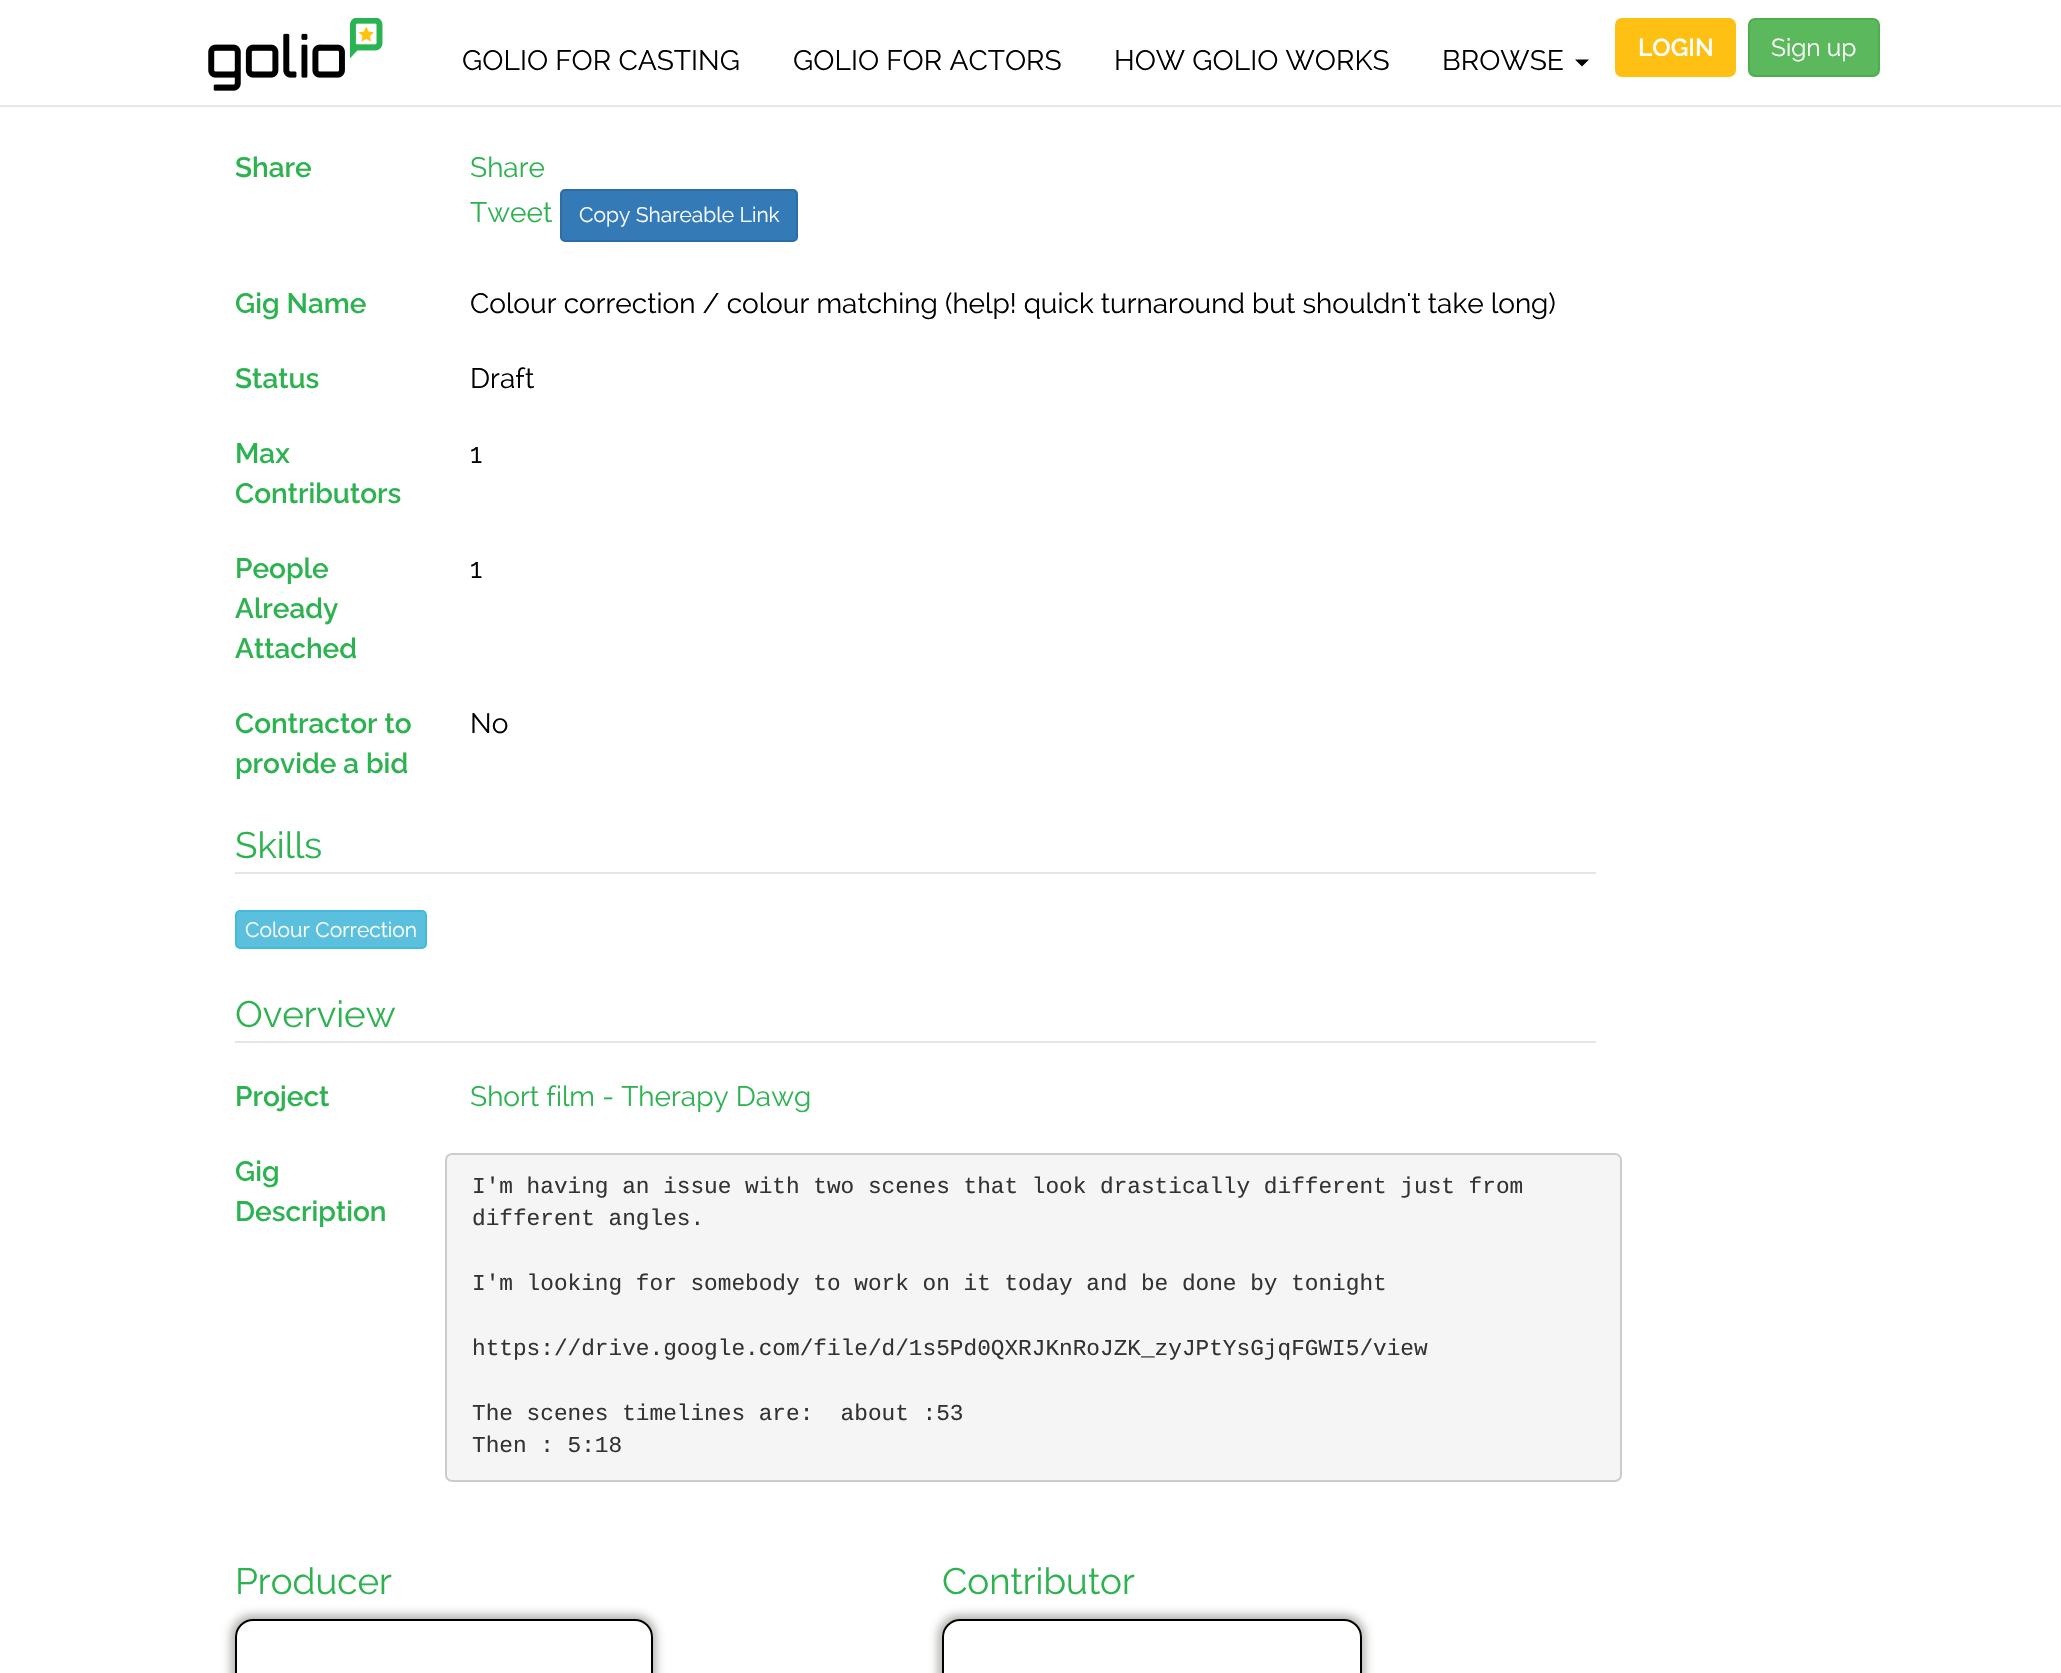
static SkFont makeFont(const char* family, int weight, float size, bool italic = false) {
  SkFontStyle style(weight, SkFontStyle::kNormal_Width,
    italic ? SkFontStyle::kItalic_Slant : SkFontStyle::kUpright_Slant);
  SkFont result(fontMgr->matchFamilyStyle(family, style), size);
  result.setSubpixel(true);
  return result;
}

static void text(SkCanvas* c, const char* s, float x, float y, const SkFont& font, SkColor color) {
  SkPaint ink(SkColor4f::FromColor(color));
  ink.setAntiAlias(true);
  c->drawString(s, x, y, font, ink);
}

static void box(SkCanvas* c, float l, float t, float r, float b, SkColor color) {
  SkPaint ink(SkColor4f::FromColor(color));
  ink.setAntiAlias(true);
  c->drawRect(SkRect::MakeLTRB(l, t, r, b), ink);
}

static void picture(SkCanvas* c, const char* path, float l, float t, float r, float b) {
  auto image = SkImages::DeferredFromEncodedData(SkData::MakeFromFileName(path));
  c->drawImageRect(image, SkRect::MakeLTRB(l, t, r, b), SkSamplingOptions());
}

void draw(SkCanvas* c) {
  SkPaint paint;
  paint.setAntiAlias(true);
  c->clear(0xffffffff);
  box(c, 0, 105, 2061, 107, 0xffe7e7e7);
  picture(c, "img_01.png", 208, 18, 383, 91);
  SkFont face1 = makeFont("Raleway", 400, 28);
  text(c, "GOLIO FOR CASTING", 462, 70, face1, 0xff000000);
  text(c, "GOLIO FOR ACTORS", 793, 70, face1, 0xff000000);
  text(c, "HOW GOLIO WORKS", 1114, 70, face1, 0xff000000);
  text(c, "BROWSE", 1442, 70, face1, 0xff000000);
  paint.setColor(0xff000000);
  c->drawPath(SkPathBuilder().moveTo(1575, 59.5f).lineTo(1589, 59.5f).lineTo(1582, 66.5f).close().detach(), paint);
  paint.setColor(0xfffdc013);
  c->drawRoundRect(SkRect::MakeLTRB(1616, 19, 1735, 76), 6, 6, paint);
  paint.setStyle(SkPaint::kStroke_Style);
  paint.setStrokeWidth(2);
  c->drawRoundRect(SkRect::MakeLTRB(1616, 19, 1735, 76), 6, 6, paint);
  SkFont face2 = makeFont("Raleway", 600, 24.5f);
  text(c, "LOGIN", 1638, 56, face2, 0xffffffff);
  paint.setStyle(SkPaint::kFill_Style);
  paint.setColor(0xff5cb85c);
  c->drawRoundRect(SkRect::MakeLTRB(1749, 19, 1879, 76), 6, 6, paint);
  paint.setStyle(SkPaint::kStroke_Style);
  paint.setColor(0xff4cae4c);
  c->drawRoundRect(SkRect::MakeLTRB(1749, 19, 1879, 76), 6, 6, paint);
  SkFont face3 = makeFont("Raleway", 400, 24.5f);
  text(c, "Sign up", 1771, 56, face3, 0xffffffff);
  SkFont face4 = makeFont("Raleway", 600, 28);
  text(c, "Share", 235, 177, face4, 0xff2cb350);
  text(c, "Share", 470, 177, face1, 0xff2cb350);
  text(c, "Tweet", 470, 222, face1, 0xff2cb350);
  paint.setStyle(SkPaint::kFill_Style);
  paint.setColor(0xff337ab7);
  c->drawRoundRect(SkRect::MakeLTRB(561, 190, 797, 241), 4, 4, paint);
  paint.setStyle(SkPaint::kStroke_Style);
  paint.setColor(0xff2e6da4);
  c->drawRoundRect(SkRect::MakeLTRB(561, 190, 797, 241), 4, 4, paint);
  SkFont face5 = makeFont("Raleway", 400, 21);
  text(c, "Copy Shareable Link", 579, 222, face5, 0xffffffff);
  text(c, "Gig Name", 235, 313, face4, 0xff2cb350);
  text(c, "Colour correction / colour matching (help! quick turnaround but shouldn't take long)", 470, 313, face1, 0xff000000);
  text(c, "Status", 235, 388, face4, 0xff2cb350);
  text(c, "Draft", 470, 388, face1, 0xff000000);
  text(c, "Max", 235, 463, face4, 0xff2cb350);
  text(c, "Contributors", 235, 503, face4, 0xff2cb350);
  text(c, "1", 470, 463, face1, 0xff000000);
  text(c, "People", 235, 578, face4, 0xff2cb350);
  text(c, "Already", 235, 618, face4, 0xff2cb350);
  text(c, "Attached", 235, 658, face4, 0xff2cb350);
  text(c, "1", 470, 578, face1, 0xff000000);
  text(c, "Contractor to", 235, 733, face4, 0xff2cb350);
  text(c, "provide a bid", 235, 773, face4, 0xff2cb350);
  text(c, "No", 470, 733, face1, 0xff000000);
  box(c, 235, 872, 1596, 874, 0xffe5e5e5);
  SkFont face6 = makeFont("Raleway", 400, 36.75f);
  text(c, "Skills", 235, 858, face6, 0xff2cb350);
  paint.setStyle(SkPaint::kFill_Style);
  paint.setColor(0xff5bc0de);
  c->drawRoundRect(SkRect::MakeLTRB(236, 911, 426, 948), 4, 4, paint);
  paint.setStyle(SkPaint::kStroke_Style);
  paint.setColor(0xff46b8da);
  c->drawRoundRect(SkRect::MakeLTRB(236, 911, 426, 948), 4, 4, paint);
  text(c, "Colour Correction", 245, 937, face5, 0xffffffff);
  box(c, 235, 1041, 1596, 1043, 0xffe5e5e5);
  text(c, "Overview", 235, 1027, face6, 0xff2cb350);
  text(c, "Project", 235, 1106, face4, 0xff2cb350);
  text(c, "Short film - Therapy Dawg", 470, 1106, face1, 0xff2cb350);
  text(c, "Gig", 235, 1181, face4, 0xff2cb350);
  text(c, "Description", 235, 1221, face4, 0xff2cb350);
  paint.setStyle(SkPaint::kFill_Style);
  paint.setColor(0xfff5f5f5);
  c->drawRoundRect(SkRect::MakeLTRB(446, 1154, 1621, 1481), 6, 6, paint);
  paint.setStyle(SkPaint::kStroke_Style);
  paint.setColor(0xffcccccc);
  c->drawRoundRect(SkRect::MakeLTRB(446, 1154, 1621, 1481), 6, 6, paint);
  SkFont face7 = makeFont("Liberation Mono", 400, 22.75f);
  text(c, "I'm having an issue with two scenes that look drastically different just from", 472, 1193, face7, 0xff333333);
  text(c, "different angles.", 472, 1225, face7, 0xff333333);
  text(c, "I'm looking for somebody to work on it today and be done by tonight", 472, 1290, face7, 0xff333333);
  text(c, "https://drive.google.com/file/d/1s5Pd0QXRJKnRoJZK_zyJPtYsGjqFGWI5/view", 472, 1355, face7, 0xff333333);
  text(c, "The scenes timelines are:  about :53", 472, 1420, face7, 0xff333333);
  text(c, "Then : 5:18", 472, 1452, face7, 0xff333333);
  text(c, "Producer", 235, 1594, face6, 0xff2cb350);
  c->save();
  c->clipPath(SkPathBuilder(SkPathFillType::kEvenOdd).moveTo(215, 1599).lineTo(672, 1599).lineTo(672, 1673).lineTo(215, 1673).close().moveTo(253, 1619).lineTo(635, 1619).cubicTo(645, 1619, 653, 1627, 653, 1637).lineTo(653, 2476).cubicTo(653, 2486, 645, 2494, 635, 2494).lineTo(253, 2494).cubicTo(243, 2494, 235, 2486, 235, 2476).lineTo(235, 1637).cubicTo(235, 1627, 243, 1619, 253, 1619).close().detach(), true);
  paint.setStyle(SkPaint::kFill_Style);
  paint.setColor(0xffb0b2ab);
  paint.setMaskFilter(SkMaskFilter::MakeBlur(kNormal_SkBlurStyle, 5));
  c->drawRoundRect(SkRect::MakeLTRB(231, 1615, 656, 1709), 21, 21, paint);
  paint.setMaskFilter(nullptr);
  c->restore();
  paint.setStyle(SkPaint::kStroke_Style);
  paint.setColor(0xff000000);
  c->drawRoundRect(SkRect::MakeLTRB(236, 1620, 652, 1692), 17, 17, paint);
  text(c, "Contributor", 942, 1594, face6, 0xff2cb350);
  c->save();
  c->clipPath(SkPathBuilder(SkPathFillType::kEvenOdd).moveTo(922, 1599).lineTo(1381, 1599).lineTo(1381, 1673).lineTo(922, 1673).close().moveTo(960, 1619).lineTo(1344, 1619).cubicTo(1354, 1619, 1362, 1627, 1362, 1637).lineTo(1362, 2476).cubicTo(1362, 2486, 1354, 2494, 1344, 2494).lineTo(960, 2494).cubicTo(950, 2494, 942, 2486, 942, 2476).lineTo(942, 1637).cubicTo(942, 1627, 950, 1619, 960, 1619).close().detach(), true);
  paint.setStyle(SkPaint::kFill_Style);
  paint.setColor(0xffb0b2ab);
  paint.setMaskFilter(SkMaskFilter::MakeBlur(kNormal_SkBlurStyle, 5));
  c->drawRoundRect(SkRect::MakeLTRB(938, 1615, 1365, 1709), 21, 21, paint);
  paint.setMaskFilter(nullptr);
  c->restore();
  paint.setStyle(SkPaint::kStroke_Style);
  paint.setColor(0xff000000);
  c->drawRoundRect(SkRect::MakeLTRB(943, 1620, 1361, 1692), 17, 17, paint);
}
